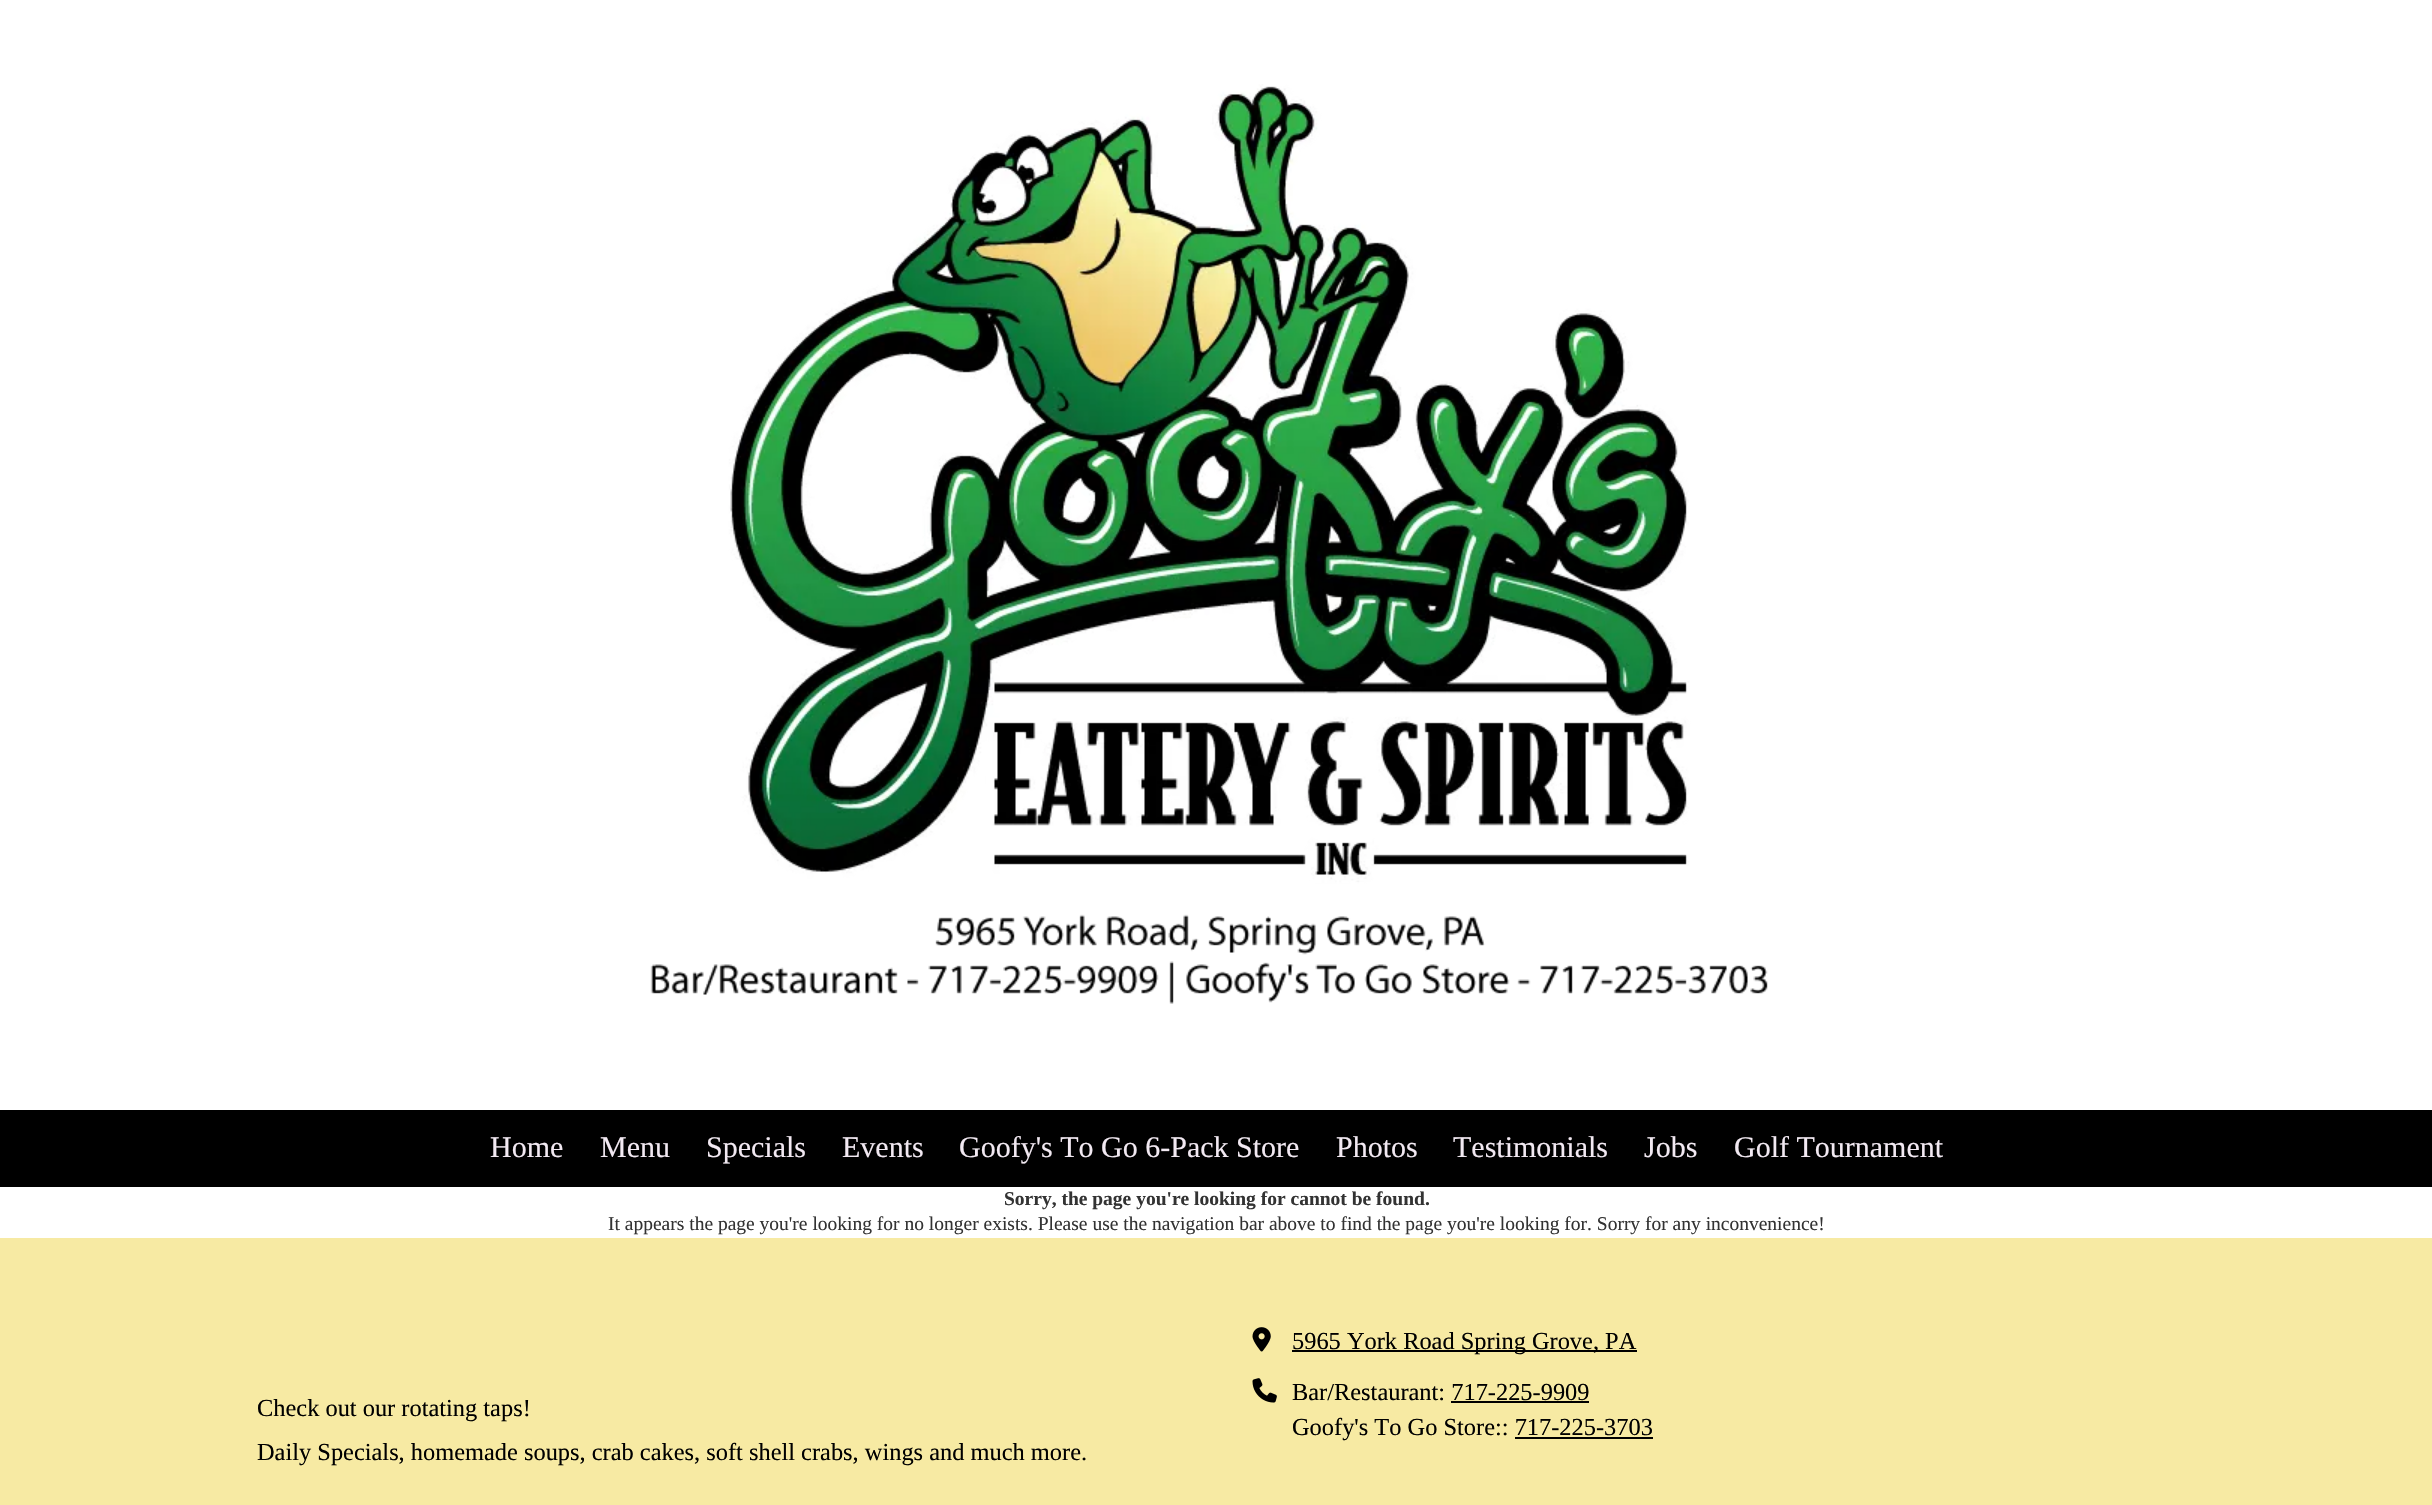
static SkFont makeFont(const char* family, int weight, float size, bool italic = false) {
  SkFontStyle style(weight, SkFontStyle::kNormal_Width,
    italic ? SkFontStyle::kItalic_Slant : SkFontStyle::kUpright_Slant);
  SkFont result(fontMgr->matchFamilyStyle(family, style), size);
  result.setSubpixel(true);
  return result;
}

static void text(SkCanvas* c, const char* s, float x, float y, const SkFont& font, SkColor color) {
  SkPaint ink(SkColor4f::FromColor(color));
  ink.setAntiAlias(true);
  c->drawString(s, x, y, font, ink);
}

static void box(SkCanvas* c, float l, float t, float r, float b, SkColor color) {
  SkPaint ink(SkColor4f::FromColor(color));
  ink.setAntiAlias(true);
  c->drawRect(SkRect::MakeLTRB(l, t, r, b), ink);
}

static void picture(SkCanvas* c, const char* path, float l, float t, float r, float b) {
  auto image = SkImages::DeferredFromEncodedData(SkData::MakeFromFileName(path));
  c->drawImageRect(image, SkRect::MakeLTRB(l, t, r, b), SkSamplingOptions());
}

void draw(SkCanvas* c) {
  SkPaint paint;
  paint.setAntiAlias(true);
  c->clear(0xffffffff);
  picture(c, "img_01.png", 650, 84, 1768, 1004);
  box(c, 0, 1110, 2432, 1187, 0xff000000);
  SkFont face1 = makeFont("Tinos", 400, 30);
  text(c, "Home", 490, 1157, face1, 0xfff2e9f2);
  text(c, "Menu", 600, 1157, face1, 0xfff2e9f2);
  text(c, "Specials", 706, 1157, face1, 0xfff2e9f2);
  text(c, "Events", 842, 1157, face1, 0xfff2e9f2);
  text(c, "Goofy's To Go 6-Pack Store", 959, 1157, face1, 0xfff2e9f2);
  text(c, "Photos", 1336, 1157, face1, 0xfff2e9f2);
  text(c, "Testimonials", 1453, 1157, face1, 0xfff2e9f2);
  text(c, "Jobs", 1644, 1157, face1, 0xfff2e9f2);
  text(c, "Golf Tournament", 1734, 1157, face1, 0xfff2e9f2);
  SkFont face2 = makeFont("Tinos", 700, 19.5f);
  text(c, "Sorry, the page you're looking for cannot be found.", 1004, 1205, face2, 0xff333333);
  SkFont face3 = makeFont("Tinos", 400, 19.5f);
  text(c, "It appears the page you're looking for no longer exists. Please use the navigation bar above to find the page you're looking for. Sorry for any inconvenience!", 608, 1230, face3, 0xff333333);
  box(c, 0, 1238, 2432, 1505, 0xfff7eaa3);
  SkFont face4 = makeFont("Tinos", 400, 24.4f);
  text(c, "Check out our rotating taps!", 257, 1416, face4, 0xff000000);
  text(c, "Daily Specials, homemade soups, crab cakes, soft shell crabs, wings and much more.", 257, 1460, face4, 0xff000000);
  picture(c, "img_02.png", 1252, 1327, 1271, 1352);
  box(c, 1292, 1350, 1637, 1352, 0xff000000);
  text(c, "5965 York Road Spring Grove, PA", 1292, 1349, face4, 0xff000000);
  picture(c, "img_03.png", 1252, 1378, 1277, 1403);
  text(c, "Bar/Restaurant: 717-225-9909", 1292, 1400, face4, 0xff000000);
  box(c, 1451, 1401, 1589, 1403, 0xff000000);
  text(c, "Goofy's To Go Store:: 717-225-3703", 1292, 1435, face4, 0xff000000);
  box(c, 1515, 1437, 1653, 1439, 0xff000000);
}
